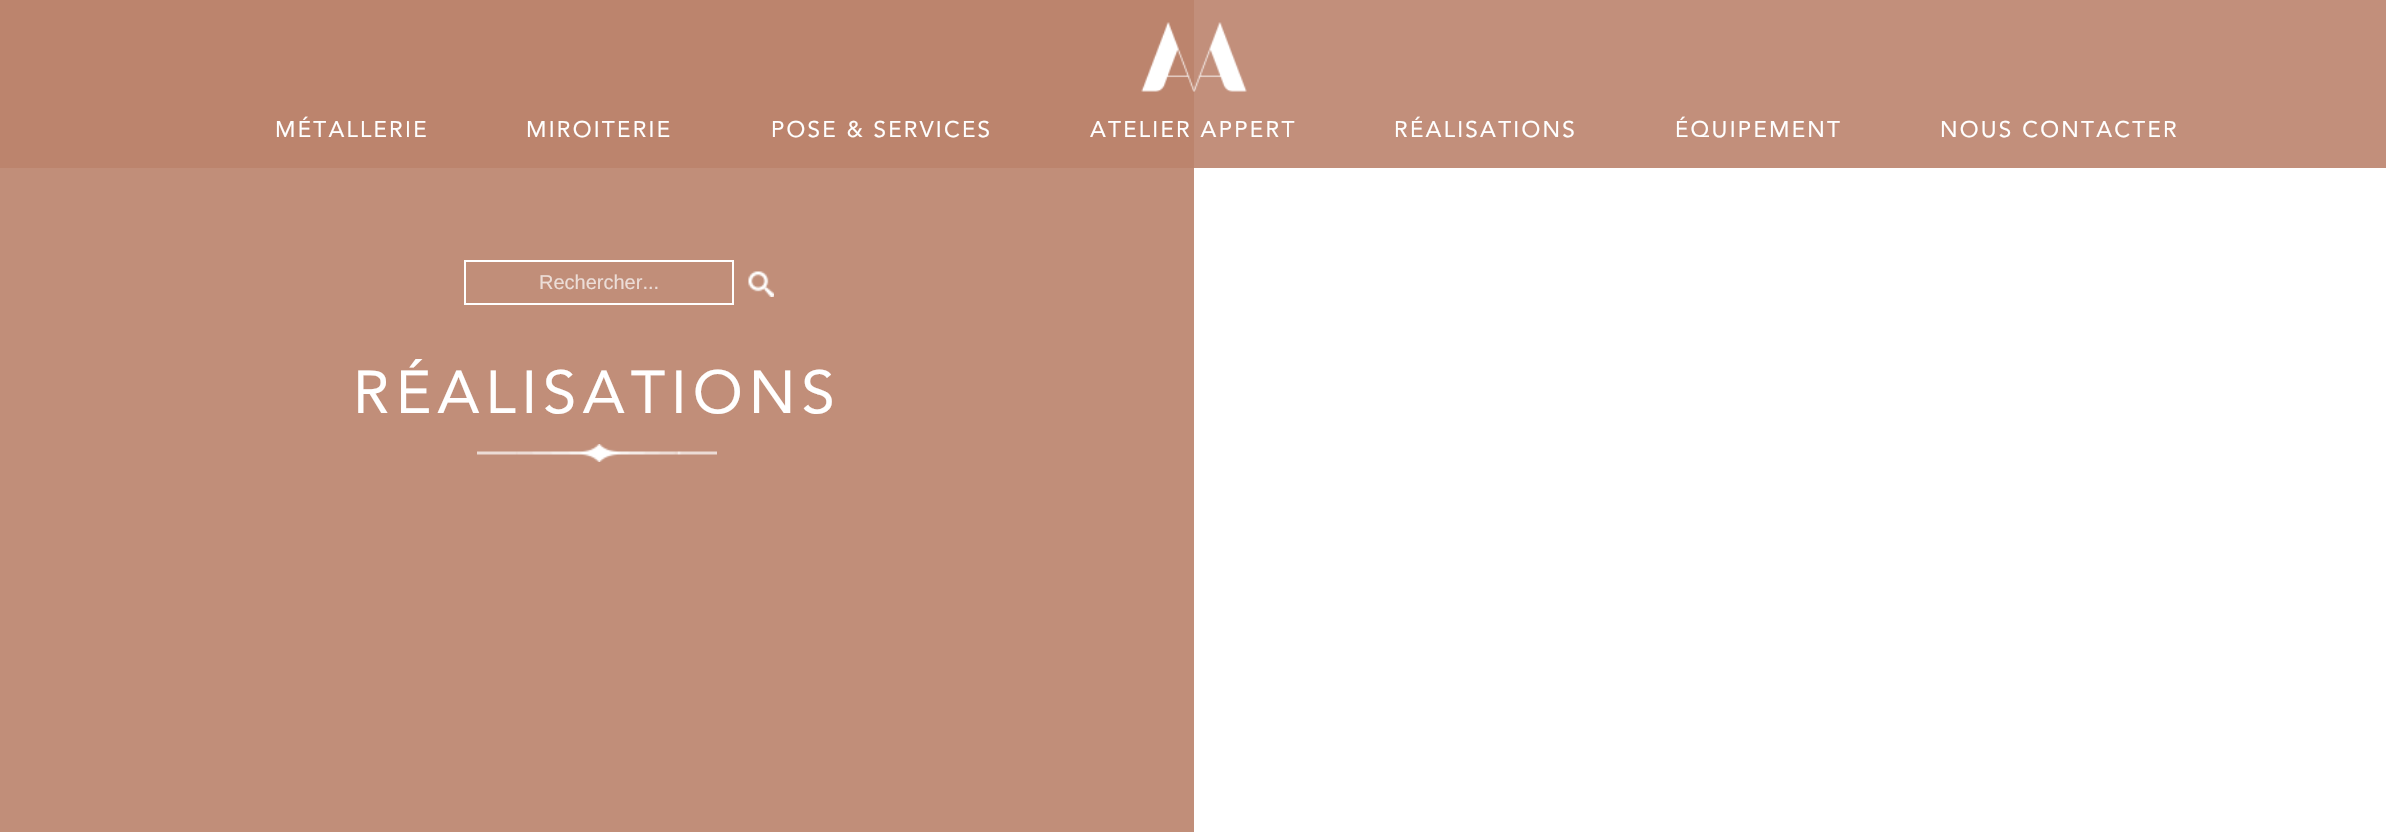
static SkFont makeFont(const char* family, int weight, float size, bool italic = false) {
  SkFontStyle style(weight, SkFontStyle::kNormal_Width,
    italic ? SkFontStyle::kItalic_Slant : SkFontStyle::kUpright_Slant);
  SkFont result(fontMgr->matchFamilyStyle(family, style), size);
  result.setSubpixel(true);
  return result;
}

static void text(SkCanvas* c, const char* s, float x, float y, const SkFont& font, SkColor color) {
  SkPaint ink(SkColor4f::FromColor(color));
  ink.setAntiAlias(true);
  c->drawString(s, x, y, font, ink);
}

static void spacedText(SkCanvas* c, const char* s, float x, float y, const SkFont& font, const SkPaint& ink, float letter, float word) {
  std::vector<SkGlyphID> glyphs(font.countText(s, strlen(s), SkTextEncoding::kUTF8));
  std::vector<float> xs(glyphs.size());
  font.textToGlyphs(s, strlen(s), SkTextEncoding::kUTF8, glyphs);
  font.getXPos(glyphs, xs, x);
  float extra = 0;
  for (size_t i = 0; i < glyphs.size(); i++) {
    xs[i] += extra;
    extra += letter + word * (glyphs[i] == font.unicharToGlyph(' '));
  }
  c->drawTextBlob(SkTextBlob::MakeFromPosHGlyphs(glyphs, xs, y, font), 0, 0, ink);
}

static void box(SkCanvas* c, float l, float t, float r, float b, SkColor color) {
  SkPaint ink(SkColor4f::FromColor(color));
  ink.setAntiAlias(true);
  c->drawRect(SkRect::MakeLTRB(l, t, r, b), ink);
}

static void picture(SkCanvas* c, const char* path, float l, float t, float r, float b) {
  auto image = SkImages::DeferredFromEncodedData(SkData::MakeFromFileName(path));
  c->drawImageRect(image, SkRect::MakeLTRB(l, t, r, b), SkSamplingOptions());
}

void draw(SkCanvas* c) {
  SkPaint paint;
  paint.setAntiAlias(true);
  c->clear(0xffffffff);
  box(c, 1194, 0, 2386, 168, 0xffc28f7b);
  box(c, 0, 0, 1194, 168, 0xffbc846d);
  picture(c, "img_01.png", 1141, 22, 1247, 92);
  SkFont face1 = makeFont("Avenir", 400, 22.5f);
  paint.setColor(0xffffffff);
  spacedText(c, "MÉTALLERIE", 275, 137, face1, paint, 2.25f, 0);
  spacedText(c, "MIROITERIE", 526, 137, face1, paint, 2.25f, 0);
  spacedText(c, "POSE & SERVICES", 771, 137, face1, paint, 2.25f, 0);
  spacedText(c, "ATELIER APPERT", 1090, 137, face1, paint, 2.25f, 0);
  spacedText(c, "RÉALISATIONS", 1394, 137, face1, paint, 2.25f, 0);
  spacedText(c, "ÉQUIPEMENT", 1675, 137, face1, paint, 2.25f, 0);
  spacedText(c, "NOUS CONTACTER", 1940, 137, face1, paint, 2.25f, 0);
  box(c, 0, 168, 1194, 832, 0xffc18e79);
  paint.setStyle(SkPaint::kStroke_Style);
  paint.setStrokeWidth(2);
  c->drawRect(SkRect::MakeLTRB(465, 261, 733, 304), paint);
  SkFont face2 = makeFont("Liberation Sans", 400, 20);
  text(c, "Rechercher...", 539, 289, face2, 0xffecddd7);
  picture(c, "img_02.png", 748, 271, 774, 297);
  SkFont face3 = makeFont("Avenir", 400, 60);
  paint.setStyle(SkPaint::kFill_Style);
  spacedText(c, "RÉALISATIONS", 353, 413, face3, paint, 6, 0);
  picture(c, "img_03.png", 477, 444, 717, 462);
}
